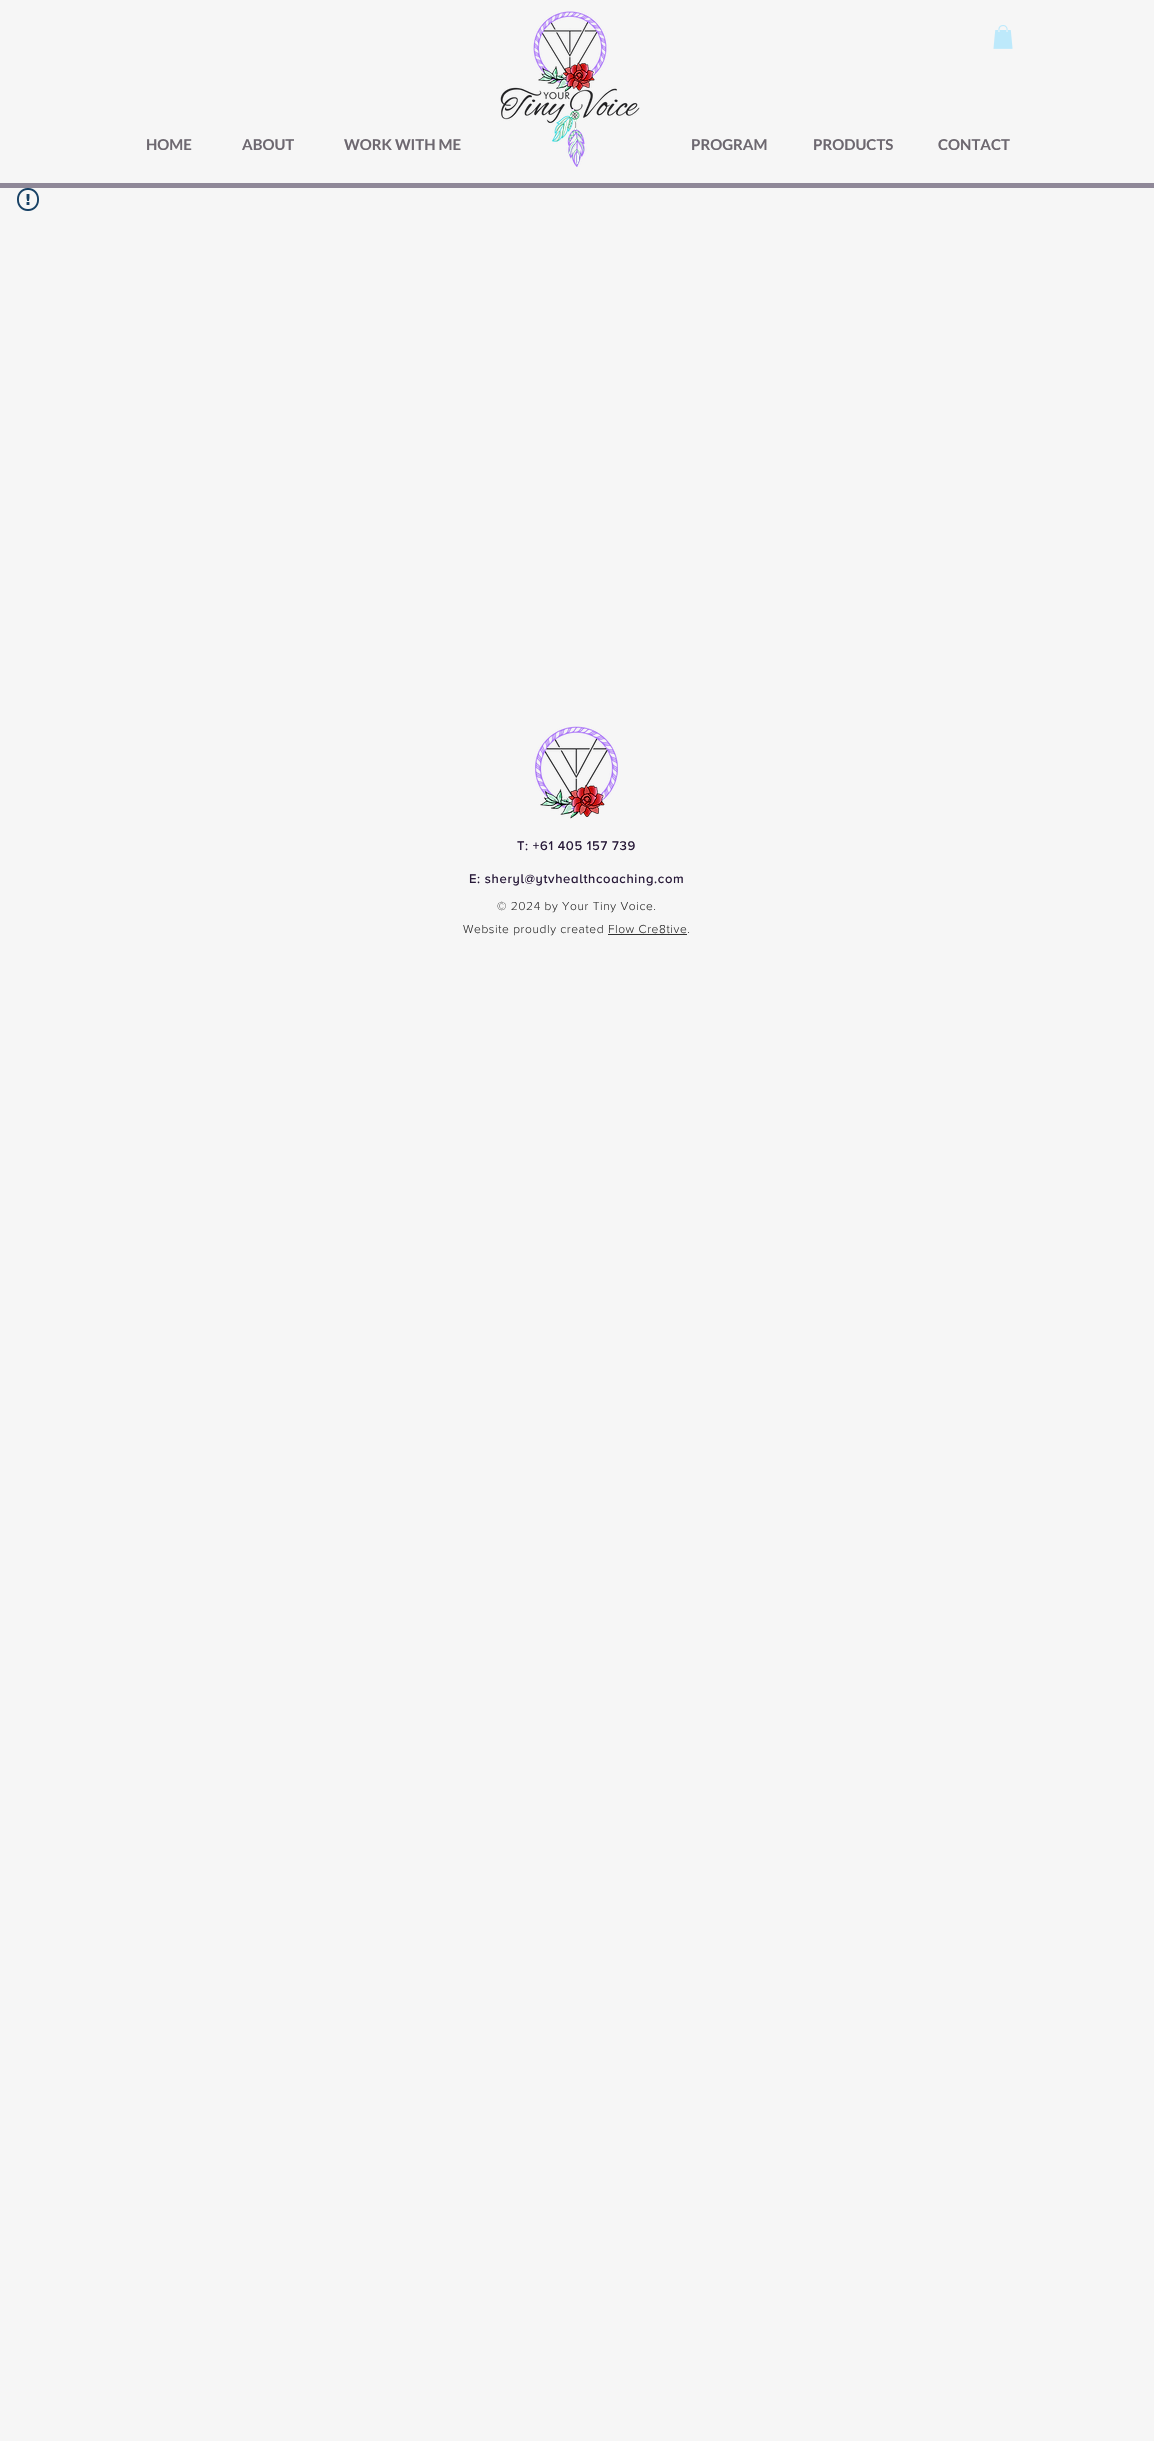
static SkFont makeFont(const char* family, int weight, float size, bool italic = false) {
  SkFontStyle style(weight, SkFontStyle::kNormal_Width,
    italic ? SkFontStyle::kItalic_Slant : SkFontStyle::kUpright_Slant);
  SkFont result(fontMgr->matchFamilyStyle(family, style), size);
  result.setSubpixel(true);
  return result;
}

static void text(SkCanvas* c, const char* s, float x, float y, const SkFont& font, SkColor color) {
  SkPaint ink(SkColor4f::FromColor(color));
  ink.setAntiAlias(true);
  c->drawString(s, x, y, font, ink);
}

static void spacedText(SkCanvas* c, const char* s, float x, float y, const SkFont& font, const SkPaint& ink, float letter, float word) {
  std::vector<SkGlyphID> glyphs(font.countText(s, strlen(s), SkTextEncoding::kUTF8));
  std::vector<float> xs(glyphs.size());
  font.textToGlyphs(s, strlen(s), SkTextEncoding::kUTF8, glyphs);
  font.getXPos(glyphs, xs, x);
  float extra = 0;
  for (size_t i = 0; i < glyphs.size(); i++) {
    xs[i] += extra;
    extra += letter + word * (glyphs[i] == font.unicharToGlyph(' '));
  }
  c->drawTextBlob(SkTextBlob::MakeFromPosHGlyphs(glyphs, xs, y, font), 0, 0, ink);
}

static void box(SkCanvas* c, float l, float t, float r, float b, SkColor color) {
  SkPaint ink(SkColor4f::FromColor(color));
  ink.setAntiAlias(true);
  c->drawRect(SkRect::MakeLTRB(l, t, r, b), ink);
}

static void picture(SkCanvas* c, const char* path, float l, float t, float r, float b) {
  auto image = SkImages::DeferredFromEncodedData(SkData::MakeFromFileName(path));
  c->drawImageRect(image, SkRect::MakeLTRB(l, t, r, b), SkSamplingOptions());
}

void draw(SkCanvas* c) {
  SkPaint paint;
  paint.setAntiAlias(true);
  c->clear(0xfff6f6f6);
  picture(c, "img_01.png", 500, 11, 640, 167);
  picture(c, "img_02.png", 993, 25, 1013, 49);
  SkFont face1 = makeFont("Lato", 700, 15);
  text(c, "HOME", 146, 150, face1, 0xff6d6870);
  text(c, "ABOUT", 242, 150, face1, 0xff6d6870);
  text(c, "WORK WITH ME", 344, 150, face1, 0xff6d6870);
  text(c, "PROGRAM", 691, 150, face1, 0xff6d6870);
  text(c, "PRODUCTS", 813, 150, face1, 0xff6d6870);
  text(c, "CONTACT", 938, 150, face1, 0xff6d6870);
  box(c, 0, 183, 1154, 188, 0xff8f8898);
  picture(c, "img_03.png", 17, 188, 39, 211);
  picture(c, "img_04.png", 534, 726, 618, 819);
  SkFont face2 = makeFont("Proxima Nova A", 500, 13);
  paint.setColor(0xff281a39);
  spacedText(c, "T: +61 405 157 739", 517, 850, face2, paint, 0.65f, 0);
  spacedText(c, "E: sheryl@ytvhealthcoaching.com", 469, 883, face2, paint, 0.65f, 0);
  SkFont face3 = makeFont("Proxima Nova", 300, 12);
  paint.setColor(0xff323232);
  spacedText(c, "© 2024 by Your Tiny Voice.", 497, 910, face3, paint, 0.6f, 0);
  spacedText(c, "Website proudly created Flow Cre8tive.", 463, 933, face3, paint, 0.6f, 0);
  box(c, 608, 934, 687, 935, 0xff323232);
}
